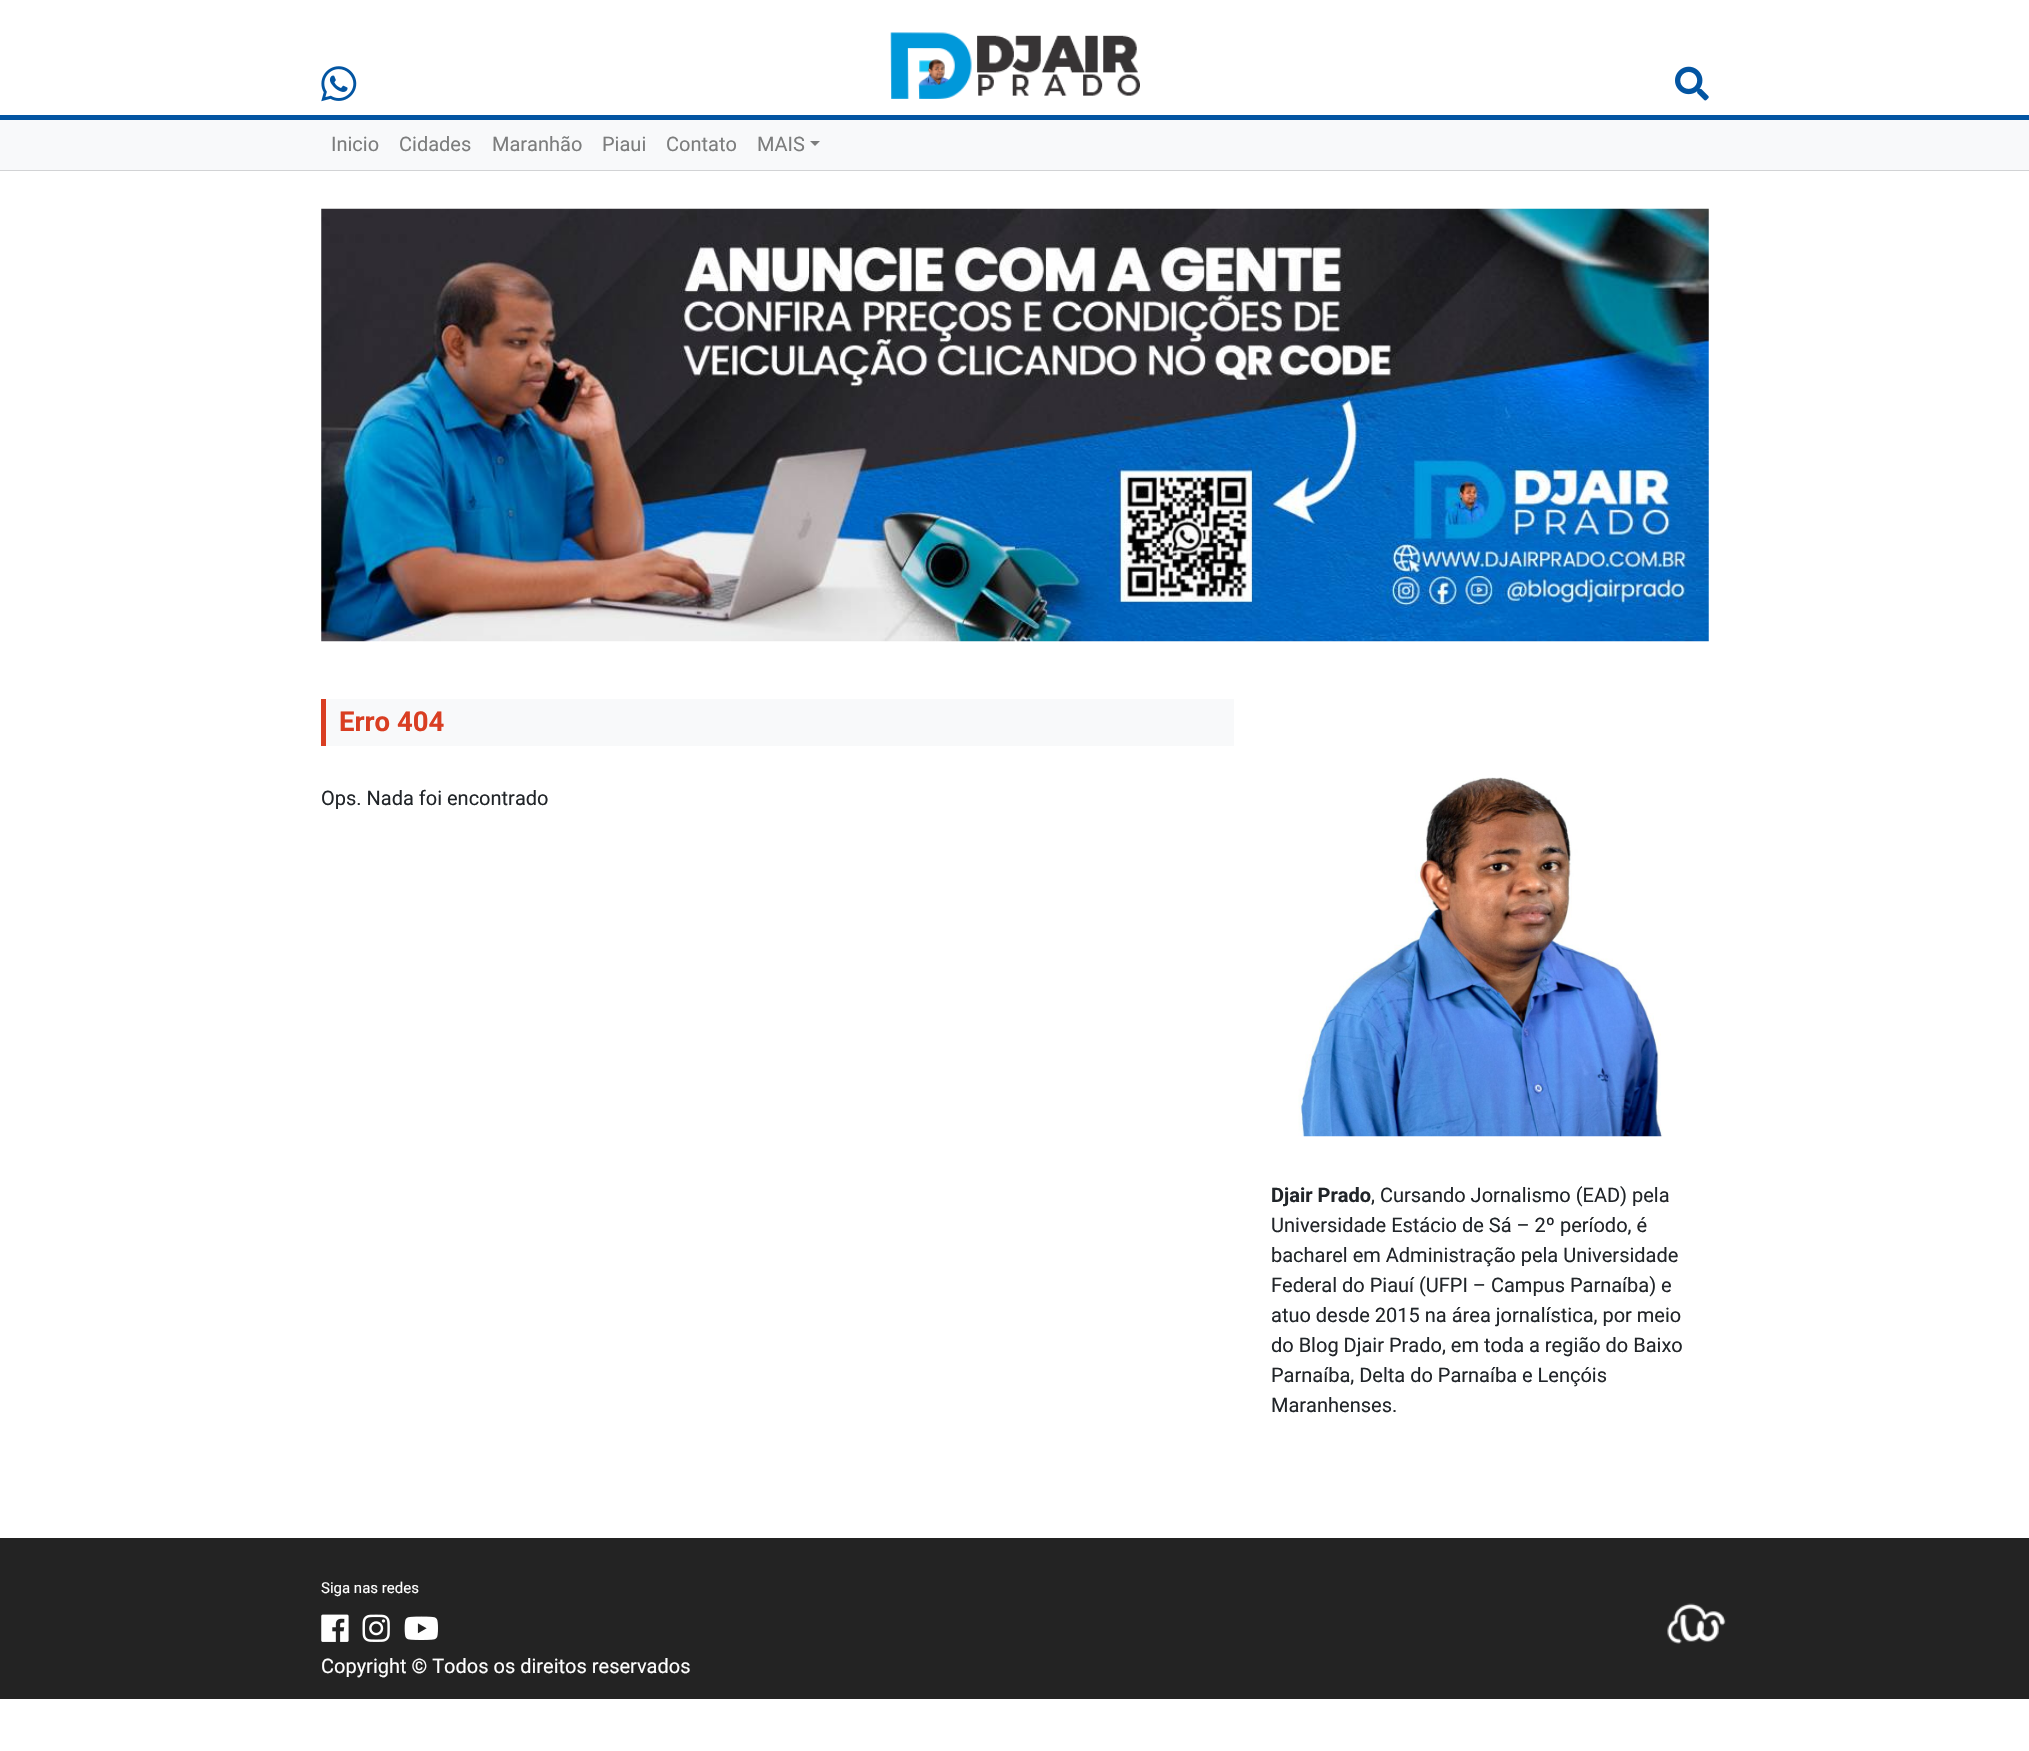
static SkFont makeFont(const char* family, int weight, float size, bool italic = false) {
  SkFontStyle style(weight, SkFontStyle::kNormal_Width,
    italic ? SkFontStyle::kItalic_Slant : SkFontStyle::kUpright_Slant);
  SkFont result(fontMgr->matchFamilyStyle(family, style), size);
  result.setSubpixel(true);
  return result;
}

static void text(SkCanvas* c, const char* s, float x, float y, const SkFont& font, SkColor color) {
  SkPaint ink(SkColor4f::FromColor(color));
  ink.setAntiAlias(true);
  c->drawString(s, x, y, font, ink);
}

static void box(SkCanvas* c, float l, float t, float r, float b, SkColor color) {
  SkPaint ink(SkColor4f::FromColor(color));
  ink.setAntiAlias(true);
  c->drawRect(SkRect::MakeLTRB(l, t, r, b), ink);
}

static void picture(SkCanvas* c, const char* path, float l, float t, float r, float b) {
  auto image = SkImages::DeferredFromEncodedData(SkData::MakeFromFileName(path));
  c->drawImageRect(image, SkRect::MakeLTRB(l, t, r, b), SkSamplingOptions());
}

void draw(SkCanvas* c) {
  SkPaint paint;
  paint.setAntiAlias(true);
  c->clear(0xffffffff);
  picture(c, "img_01.png", 321, 66, 357, 102);
  picture(c, "img_02.png", 890, 32, 1140, 99);
  picture(c, "img_03.png", 1675, 66, 1709, 101);
  box(c, 0, 120, 2029, 170, 0xfff8f9fa);
  box(c, 0, 115, 2029, 120, 0xff0355a2);
  box(c, 0, 170, 2029, 171, 0xffd2d3d5);
  SkFont face1 = makeFont("Roboto", 400, 20);
  text(c, "Inicio", 331, 151, face1, 0xff7c7d7d);
  text(c, "Cidades", 399, 151, face1, 0xff7c7d7d);
  text(c, "Maranhão", 492, 151, face1, 0xff7c7d7d);
  text(c, "Piaui", 602, 151, face1, 0xff7c7d7d);
  text(c, "Contato", 666, 151, face1, 0xff7c7d7d);
  text(c, "MAIS", 757, 151, face1, 0xff7c7d7d);
  paint.setColor(0xff7c7d7d);
  c->drawPath(SkPathBuilder().moveTo(810, 141).lineTo(820, 141).lineTo(815, 146).close().detach(), paint);
  picture(c, "img_04.png", 321, 208, 1709, 642);
  box(c, 326, 699, 1234, 746, 0xfff8f9fa);
  box(c, 321, 699, 326, 746, 0xffd93e22);
  SkFont face2 = makeFont("Roboto", 700, 27.5f);
  text(c, "Erro 404", 339, 731, face2, 0xffd93e22);
  text(c, "Ops. Nada foi encontrado", 321, 805, face1, 0xff212529);
  picture(c, "img_05.png", 1298, 777, 1663, 1137);
  SkFont face3 = makeFont("Roboto", 700, 20);
  text(c, "Djair Prado", 1271, 1202, face3, 0xff212529);
  text(c, ", Cursando Jornalismo (EAD) pela", 1371, 1202, face1, 0xff212529);
  text(c, "Universidade Estácio de Sá – 2º período, é", 1271, 1232, face1, 0xff212529);
  text(c, "bacharel em Administração pela Universidade", 1271, 1262, face1, 0xff212529);
  text(c, "Federal do Piauí (UFPI – Campus Parnaíba) e", 1271, 1292, face1, 0xff212529);
  text(c, "atuo desde 2015 na área jornalística, por meio", 1271, 1322, face1, 0xff212529);
  text(c, "do Blog Djair Prado, em toda a região do Baixo", 1271, 1352, face1, 0xff212529);
  text(c, "Parnaíba, Delta do Parnaíba e Lençóis", 1271, 1382, face1, 0xff212529);
  text(c, "Maranhenses.", 1271, 1412, face1, 0xff212529);
  box(c, 0, 1538, 2029, 1699, 0xff232323);
  SkFont face4 = makeFont("Roboto", 400, 15);
  text(c, "Siga nas redes", 321, 1593, face4, 0xffffffff);
  picture(c, "img_06.png", 321, 1614, 349, 1642);
  picture(c, "img_07.png", 362, 1614, 390, 1642);
  picture(c, "img_08.png", 404, 1616, 438, 1640);
  text(c, "Copyright © Todos os direitos reservados", 321, 1673, face1, 0xffffffff);
  picture(c, "img_09.png", 1667, 1603, 1726, 1644);
}
